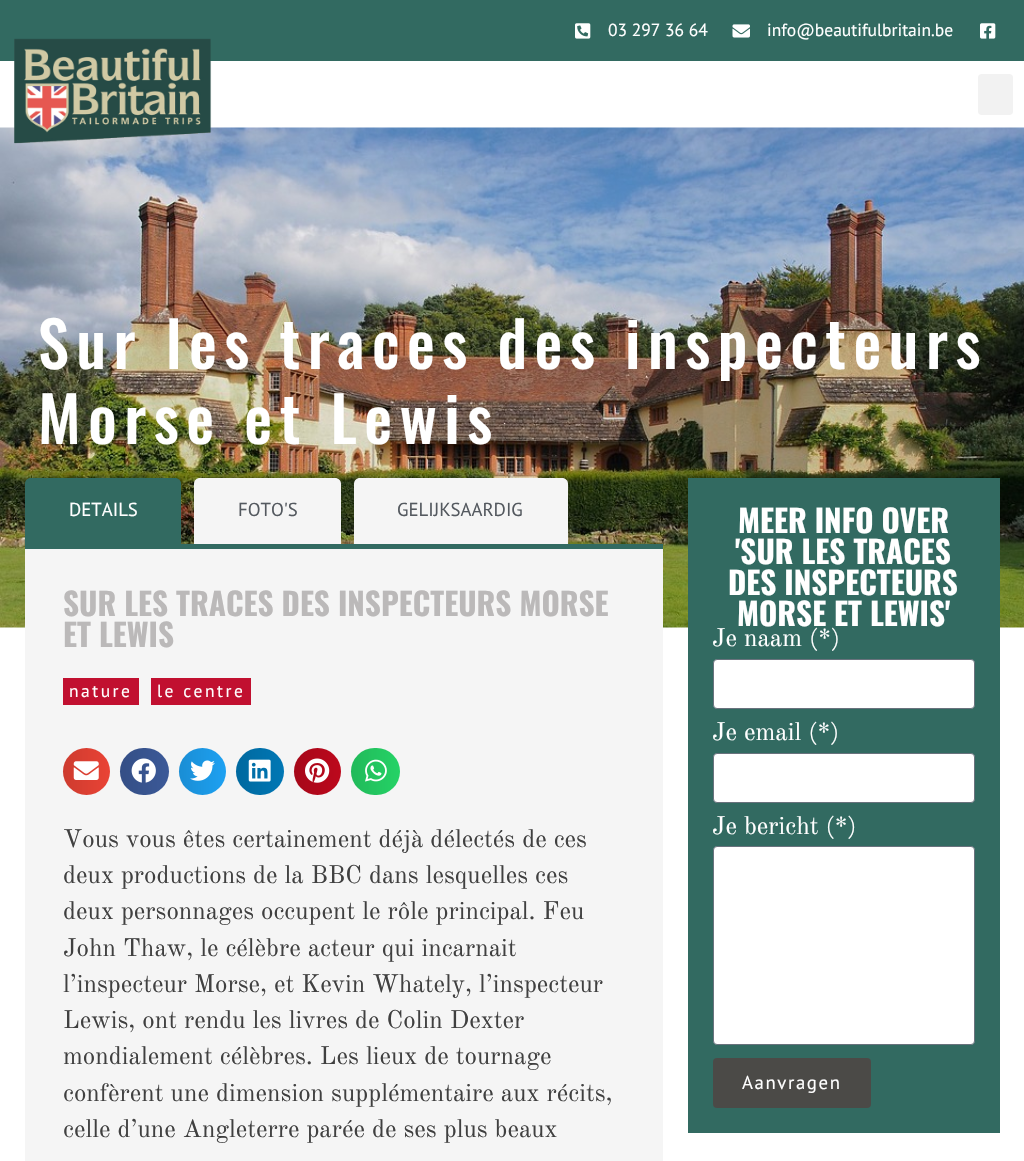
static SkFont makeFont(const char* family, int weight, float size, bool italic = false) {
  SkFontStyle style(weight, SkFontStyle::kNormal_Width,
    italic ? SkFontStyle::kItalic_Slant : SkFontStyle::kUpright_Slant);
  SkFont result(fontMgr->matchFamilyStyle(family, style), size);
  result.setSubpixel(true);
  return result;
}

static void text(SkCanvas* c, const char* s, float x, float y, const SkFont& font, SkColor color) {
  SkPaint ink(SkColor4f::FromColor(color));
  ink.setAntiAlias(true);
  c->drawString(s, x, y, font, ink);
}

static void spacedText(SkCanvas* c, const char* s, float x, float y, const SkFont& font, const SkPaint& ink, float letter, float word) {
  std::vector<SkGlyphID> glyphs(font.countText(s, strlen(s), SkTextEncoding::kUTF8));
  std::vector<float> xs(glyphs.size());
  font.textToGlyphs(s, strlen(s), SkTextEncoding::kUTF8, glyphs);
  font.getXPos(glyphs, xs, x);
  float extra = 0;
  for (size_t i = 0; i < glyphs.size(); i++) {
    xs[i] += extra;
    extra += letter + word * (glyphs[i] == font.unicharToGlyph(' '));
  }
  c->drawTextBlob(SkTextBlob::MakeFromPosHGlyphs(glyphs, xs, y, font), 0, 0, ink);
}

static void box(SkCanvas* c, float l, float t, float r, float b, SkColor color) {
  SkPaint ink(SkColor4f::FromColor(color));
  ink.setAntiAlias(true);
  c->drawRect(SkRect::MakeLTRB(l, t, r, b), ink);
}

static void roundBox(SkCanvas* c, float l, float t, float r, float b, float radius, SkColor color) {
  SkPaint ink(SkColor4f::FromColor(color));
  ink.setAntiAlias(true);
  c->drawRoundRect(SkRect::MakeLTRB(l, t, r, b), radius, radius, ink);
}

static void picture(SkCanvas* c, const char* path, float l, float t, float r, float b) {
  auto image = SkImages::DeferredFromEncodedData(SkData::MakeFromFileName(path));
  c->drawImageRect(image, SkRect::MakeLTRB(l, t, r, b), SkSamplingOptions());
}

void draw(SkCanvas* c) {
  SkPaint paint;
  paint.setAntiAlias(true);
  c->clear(0xffffffff);
  box(c, 0, 0, 1024, 61, 0xff326a61);
  picture(c, "img_01.png", 575, 23, 591, 39);
  SkFont face1 = makeFont("PT Sans", 400, 17.5f);
  text(c, "03 297 36 64", 608, 36, face1, 0xffffffff);
  picture(c, "img_02.png", 732, 24, 750, 38);
  text(c, "info@beautifulbritain.be", 767, 36, face1, 0xffffffff);
  picture(c, "img_03.png", 980, 23, 996, 39);
  picture(c, "img_05.png", 0, 127, 1024, 628);
  picture(c, "img_04.png", 14, 38, 212, 144);
  roundBox(c, 978, 74, 1013, 115, 4, 0xfff2f2f2);
  SkFont face2 = makeFont("Oswald", 500, 62.5f);
  paint.setColor(0xffffffff);
  spacedText(c, "Sur les traces des inspecteurs", 38, 369, face2, paint, 7.5f, 0);
  spacedText(c, "Morse et Lewis", 38, 444, face2, paint, 7.5f, 0);
  paint.setColor(0xff326a61);
  c->drawPath(SkPathBuilder().moveTo(31, 478).lineTo(175, 478).cubicTo(178.5f, 478, 181, 480.5f, 181, 484).lineTo(181, 544).lineTo(25, 544).lineTo(25, 484).cubicTo(25, 480.5f, 27.5f, 478, 31, 478).close().detach(), paint);
  SkFont face3 = makeFont("PT Sans", 400, 18.75f);
  text(c, "DETAILS", 69, 516, face3, 0xffffffff);
  paint.setColor(0xfff5f5f5);
  c->drawPath(SkPathBuilder().moveTo(200, 478).lineTo(335, 478).cubicTo(338.5f, 478, 341, 480.5f, 341, 484).lineTo(341, 544).lineTo(194, 544).lineTo(194, 484).cubicTo(194, 480.5f, 196.5f, 478, 200, 478).close().detach(), paint);
  text(c, "FOTO'S", 238, 516, face3, 0xff54595f);
  c->drawPath(SkPathBuilder().moveTo(360, 478).lineTo(562, 478).cubicTo(565.5f, 478, 568, 480.5f, 568, 484).lineTo(568, 544).lineTo(354, 544).lineTo(354, 484).cubicTo(354, 480.5f, 356.5f, 478, 360, 478).close().detach(), paint);
  text(c, "GELIJKSAARDIG", 397, 516, face3, 0xff54595f);
  box(c, 25, 549, 663, 1161, 0xfff5f5f5);
  box(c, 25, 544, 663, 549, 0xff326a61);
  SkFont face4 = makeFont("Oswald", 700, 31.25f);
  text(c, "SUR LES TRACES DES INSPECTEURS MORSE", 63, 616, face4, 0xffbbb9b9);
  text(c, "ET LEWIS", 63, 647, face4, 0xffbbb9b9);
  box(c, 63, 678, 139, 705, 0xffc11030);
  paint.setColor(0xffffffff);
  spacedText(c, "nature", 69, 697, face1, paint, 2.5f, 0);
  box(c, 151, 678, 251, 705, 0xffc11030);
  spacedText(c, "le centre", 157, 697, face1, paint, 2.5f, 0);
  paint.setColor(0xffea4335);
  c->drawCircle(86.5f, 771.5f, 23.5f, paint);
  {
    const SkColor colors[] = {0x1f000000, 0x00000000};
    const float stops[] = {0, 1};
    const SkPoint ends[] = {{63, 771}, {110, 771}};
    paint.setShader(SkGradientShader::MakeLinear(ends, colors, stops, 2, SkTileMode::kClamp));
    paint.setAlpha(255);
  }
  c->drawCircle(86.5f, 771.5f, 23.5f, paint);
  picture(c, "img_06.png", 73, 761, 99, 780);
  roundBox(c, 120, 748, 169, 795, 23.5f, 0xff3b5998);
  {
    const SkColor colors[] = {0x1f000000, 0x00000000};
    const float stops[] = {0, 1};
    const SkPoint ends[] = {{120, 771}, {169, 771}};
    paint.setShader(SkGradientShader::MakeLinear(ends, colors, stops, 2, SkTileMode::kClamp));
    paint.setAlpha(255);
  }
  c->drawRoundRect(SkRect::MakeLTRB(120, 748, 169, 795), 23.5f, 23.5f, paint);
  picture(c, "img_07.png", 131, 758, 156, 783);
  paint.setShader(nullptr);
  paint.setColor(0xff1da1f2);
  c->drawCircle(202.5f, 771.5f, 23.5f, paint);
  {
    const SkColor colors[] = {0x1f000000, 0x00000000};
    const float stops[] = {0, 1};
    const SkPoint ends[] = {{179, 771}, {226, 771}};
    paint.setShader(SkGradientShader::MakeLinear(ends, colors, stops, 2, SkTileMode::kClamp));
    paint.setAlpha(255);
  }
  c->drawCircle(202.5f, 771.5f, 23.5f, paint);
  picture(c, "img_08.png", 190, 760, 215, 781);
  roundBox(c, 236, 748, 284, 795, 23.5f, 0xff0077b5);
  {
    const SkColor colors[] = {0x1f000000, 0x00000000};
    const float stops[] = {0, 1};
    const SkPoint ends[] = {{236, 771}, {284, 771}};
    paint.setShader(SkGradientShader::MakeLinear(ends, colors, stops, 2, SkTileMode::kClamp));
    paint.setAlpha(255);
  }
  c->drawRoundRect(SkRect::MakeLTRB(236, 748, 284, 795), 23.5f, 23.5f, paint);
  picture(c, "img_09.png", 248, 759, 271, 782);
  paint.setShader(nullptr);
  paint.setColor(0xffbd081c);
  c->drawCircle(317.5f, 771.5f, 23.5f, paint);
  {
    const SkColor colors[] = {0x1f000000, 0x00000000};
    const float stops[] = {0, 1};
    const SkPoint ends[] = {{294, 771}, {341, 771}};
    paint.setShader(SkGradientShader::MakeLinear(ends, colors, stops, 2, SkTileMode::kClamp));
    paint.setAlpha(255);
  }
  c->drawCircle(317.5f, 771.5f, 23.5f, paint);
  picture(c, "img_10.png", 305, 758, 330, 783);
  roundBox(c, 351, 748, 400, 795, 23.5f, 0xff25d366);
  {
    const SkColor colors[] = {0x1f000000, 0x00000000};
    const float stops[] = {0, 1};
    const SkPoint ends[] = {{351, 771}, {400, 771}};
    paint.setShader(SkGradientShader::MakeLinear(ends, colors, stops, 2, SkTileMode::kClamp));
    paint.setAlpha(255);
  }
  c->drawRoundRect(SkRect::MakeLTRB(351, 748, 400, 795), 23.5f, 23.5f, paint);
  picture(c, "img_11.png", 365, 759, 387, 782);
  SkFont face5 = makeFont("Old Standard TT", 400, 25);
  text(c, "Vous vous êtes certainement déjà délectés de ces", 63, 847, face5, 0xff404040);
  text(c, "deux productions de la BBC dans lesquelles ces", 63, 883, face5, 0xff404040);
  text(c, "deux personnages occupent le rôle principal. Feu", 63, 919, face5, 0xff404040);
  text(c, "John Thaw, le célèbre acteur qui incarnait", 63, 956, face5, 0xff404040);
  text(c, "l’inspecteur Morse, et Kevin Whately, l’inspecteur", 63, 992, face5, 0xff404040);
  text(c, "Lewis, ont rendu les livres de Colin Dexter", 63, 1028, face5, 0xff404040);
  text(c, "mondialement célèbres. Les lieux de tournage", 63, 1064, face5, 0xff404040);
  text(c, "confèrent une dimension supplémentaire aux récits,", 63, 1101, face5, 0xff404040);
  text(c, "celle d’une Angleterre parée de ses plus beaux", 63, 1137, face5, 0xff404040);
  box(c, 688, 478, 1000, 1133, 0xff326a61);
  text(c, "MEER INFO OVER", 738, 533, face4, 0xffffffff);
  text(c, "'SUR LES TRACES", 735, 564, face4, 0xffffffff);
  text(c, "DES INSPECTEURS", 728, 595, face4, 0xffffffff);
  text(c, "MORSE ET LEWIS'", 737, 626, face4, 0xffffffff);
  text(c, "Je naam (*)", 712, 646, face5, 0xffffffff);
  paint.setShader(nullptr);
  paint.setColor(0xffffffff);
  c->drawRoundRect(SkRect::MakeLTRB(713.5f, 659.5f, 974.5f, 708.5f), 3.5f, 3.5f, paint);
  paint.setStyle(SkPaint::kStroke_Style);
  paint.setStrokeWidth(1);
  paint.setColor(0xff69727d);
  c->drawRoundRect(SkRect::MakeLTRB(713.5f, 659.5f, 974.5f, 708.5f), 3.5f, 3.5f, paint);
  text(c, "Je email (*)", 712, 740, face5, 0xffffffff);
  paint.setStyle(SkPaint::kFill_Style);
  paint.setColor(0xffffffff);
  c->drawRoundRect(SkRect::MakeLTRB(713.5f, 753.5f, 974.5f, 802.5f), 3.5f, 3.5f, paint);
  paint.setStyle(SkPaint::kStroke_Style);
  paint.setColor(0xff69727d);
  c->drawRoundRect(SkRect::MakeLTRB(713.5f, 753.5f, 974.5f, 802.5f), 3.5f, 3.5f, paint);
  text(c, "Je bericht (*)", 712, 834, face5, 0xffffffff);
  paint.setStyle(SkPaint::kFill_Style);
  paint.setColor(0xffffffff);
  c->drawRoundRect(SkRect::MakeLTRB(713.5f, 846.5f, 974.5f, 1044.5f), 3.5f, 3.5f, paint);
  paint.setStyle(SkPaint::kStroke_Style);
  paint.setColor(0xff69727d);
  c->drawRoundRect(SkRect::MakeLTRB(713.5f, 846.5f, 974.5f, 1044.5f), 3.5f, 3.5f, paint);
  roundBox(c, 713, 1058, 871, 1108, 4, 0xff4b4a47);
  paint.setStyle(SkPaint::kFill_Style);
  paint.setColor(0xffffffff);
  spacedText(c, "Aanvragen", 742, 1089, face3, paint, 1.6f, 0);
}
